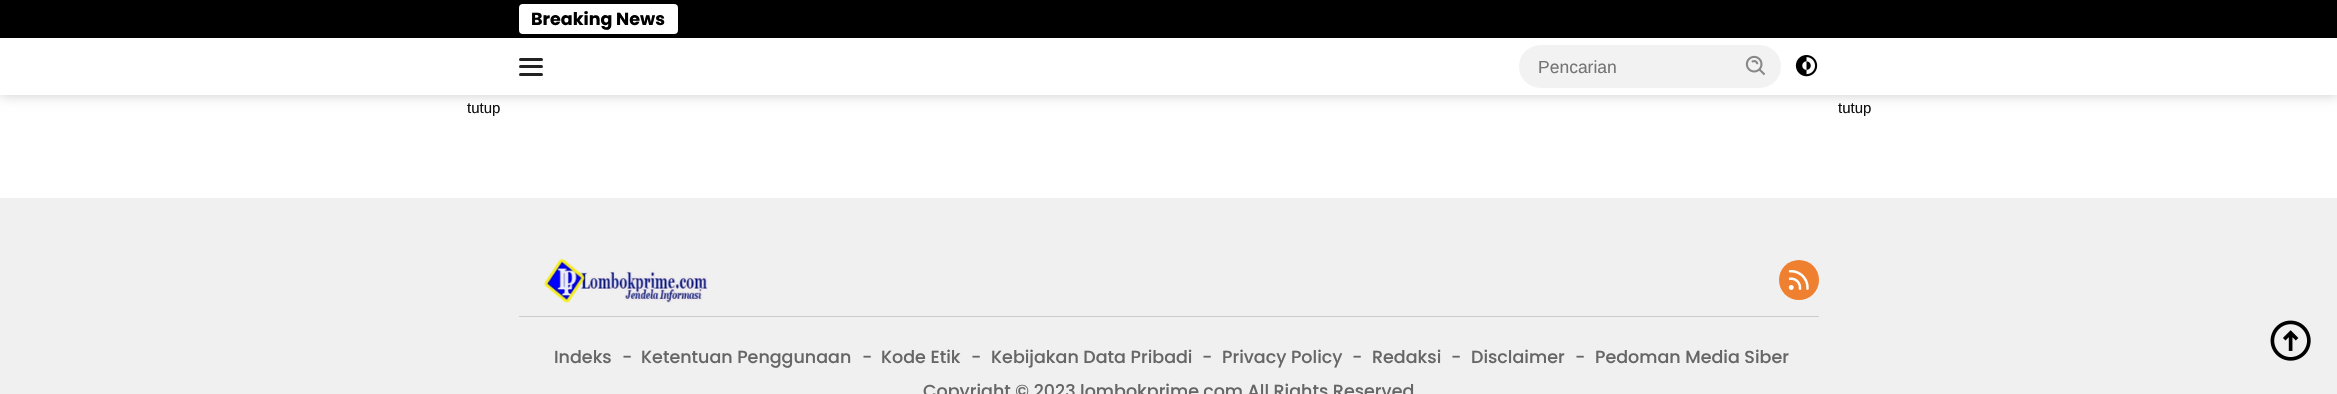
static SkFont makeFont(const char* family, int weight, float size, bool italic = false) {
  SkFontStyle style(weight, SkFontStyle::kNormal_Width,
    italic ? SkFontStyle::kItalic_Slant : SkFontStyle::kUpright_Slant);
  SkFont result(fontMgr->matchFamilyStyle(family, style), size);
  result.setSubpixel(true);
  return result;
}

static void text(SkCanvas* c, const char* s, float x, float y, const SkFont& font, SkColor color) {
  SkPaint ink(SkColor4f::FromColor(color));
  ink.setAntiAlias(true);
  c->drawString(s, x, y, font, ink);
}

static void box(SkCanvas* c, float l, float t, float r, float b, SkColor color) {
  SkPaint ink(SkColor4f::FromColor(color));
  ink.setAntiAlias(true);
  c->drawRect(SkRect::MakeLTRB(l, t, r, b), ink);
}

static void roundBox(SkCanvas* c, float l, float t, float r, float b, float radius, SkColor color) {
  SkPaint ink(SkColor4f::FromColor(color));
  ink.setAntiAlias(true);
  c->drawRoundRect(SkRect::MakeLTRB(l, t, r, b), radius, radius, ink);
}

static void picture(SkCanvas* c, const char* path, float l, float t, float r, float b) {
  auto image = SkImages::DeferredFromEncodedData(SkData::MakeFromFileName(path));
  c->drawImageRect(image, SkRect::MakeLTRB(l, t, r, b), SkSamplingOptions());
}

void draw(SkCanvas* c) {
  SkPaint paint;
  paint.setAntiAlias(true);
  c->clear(0xffffffff);
  paint.setColor(0x33000000);
  paint.setMaskFilter(SkMaskFilter::MakeBlur(kNormal_SkBlurStyle, 6));
  c->drawRect(SkRect::MakeLTRB(0, 0, 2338, 95), paint);
  paint.setMaskFilter(nullptr);
  box(c, 0, 38, 2337, 95, 0xffffffff);
  box(c, 0, 0, 2337, 38, 0xff000000);
  roundBox(c, 519, 4, 678, 34, 4, 0xffffffff);
  SkFont face1 = makeFont("Poppins", 700, 17.5f);
  text(c, "Breaking News", 531, 25, face1, 0xff000000);
  roundBox(c, 519, 58, 543, 61, 1.5f, 0xff222222);
  roundBox(c, 519, 65, 543, 68, 1.5f, 0xff222222);
  roundBox(c, 519, 73, 543, 76, 1.5f, 0xff222222);
  roundBox(c, 1519, 45, 1781, 88, 21.5f, 0xfff2f2f2);
  SkFont face2 = makeFont("Liberation Sans", 400, 17.5f);
  text(c, "Pencarian", 1538, 73, face2, 0xff757575);
  picture(c, "img_01.png", 1745, 55, 1766, 76);
  picture(c, "img_02.png", 1795, 55, 1818, 77);
  SkFont face3 = makeFont("Liberation Sans", 400, 15);
  text(c, "tutup", 467, 113, face3, 0xff111111);
  text(c, "tutup", 1838, 113, face3, 0xff111111);
  box(c, 0, 198, 2337, 394, 0xfff0f0f0);
  box(c, 519, 316, 1819, 317, 0xffcccccc);
  picture(c, "img_03.png", 544, 258, 708, 303);
  paint.setColor(0xffee802f);
  c->drawCircle(1799, 280, 20, paint);
  picture(c, "img_04.png", 1788, 270, 1809, 290);
  SkFont face4 = makeFont("Poppins", 500, 17.5f);
  text(c, "Indeks", 554, 363, face4, 0xff666666);
  text(c, "-", 622, 363, face4, 0xff666666);
  text(c, "Ketentuan Penggunaan", 641, 363, face4, 0xff666666);
  text(c, "-", 862, 363, face4, 0xff666666);
  text(c, "Kode Etik", 881, 363, face4, 0xff666666);
  text(c, "-", 971, 363, face4, 0xff666666);
  text(c, "Kebijakan Data Pribadi", 991, 363, face4, 0xff666666);
  text(c, "-", 1202, 363, face4, 0xff666666);
  text(c, "Privacy Policy", 1222, 363, face4, 0xff666666);
  text(c, "-", 1352, 363, face4, 0xff666666);
  text(c, "Redaksi", 1372, 363, face4, 0xff666666);
  text(c, "-", 1451, 363, face4, 0xff666666);
  text(c, "Disclaimer", 1471, 363, face4, 0xff666666);
  text(c, "-", 1575, 363, face4, 0xff666666);
  text(c, "Pedoman Media Siber", 1595, 363, face4, 0xff666666);
  text(c, "Copyright © 2023 lombokprime.com All Rights Reserved", 923, 397, face4, 0xff666666);
  picture(c, "img_05.png", 2270, 320, 2311, 361);
}
